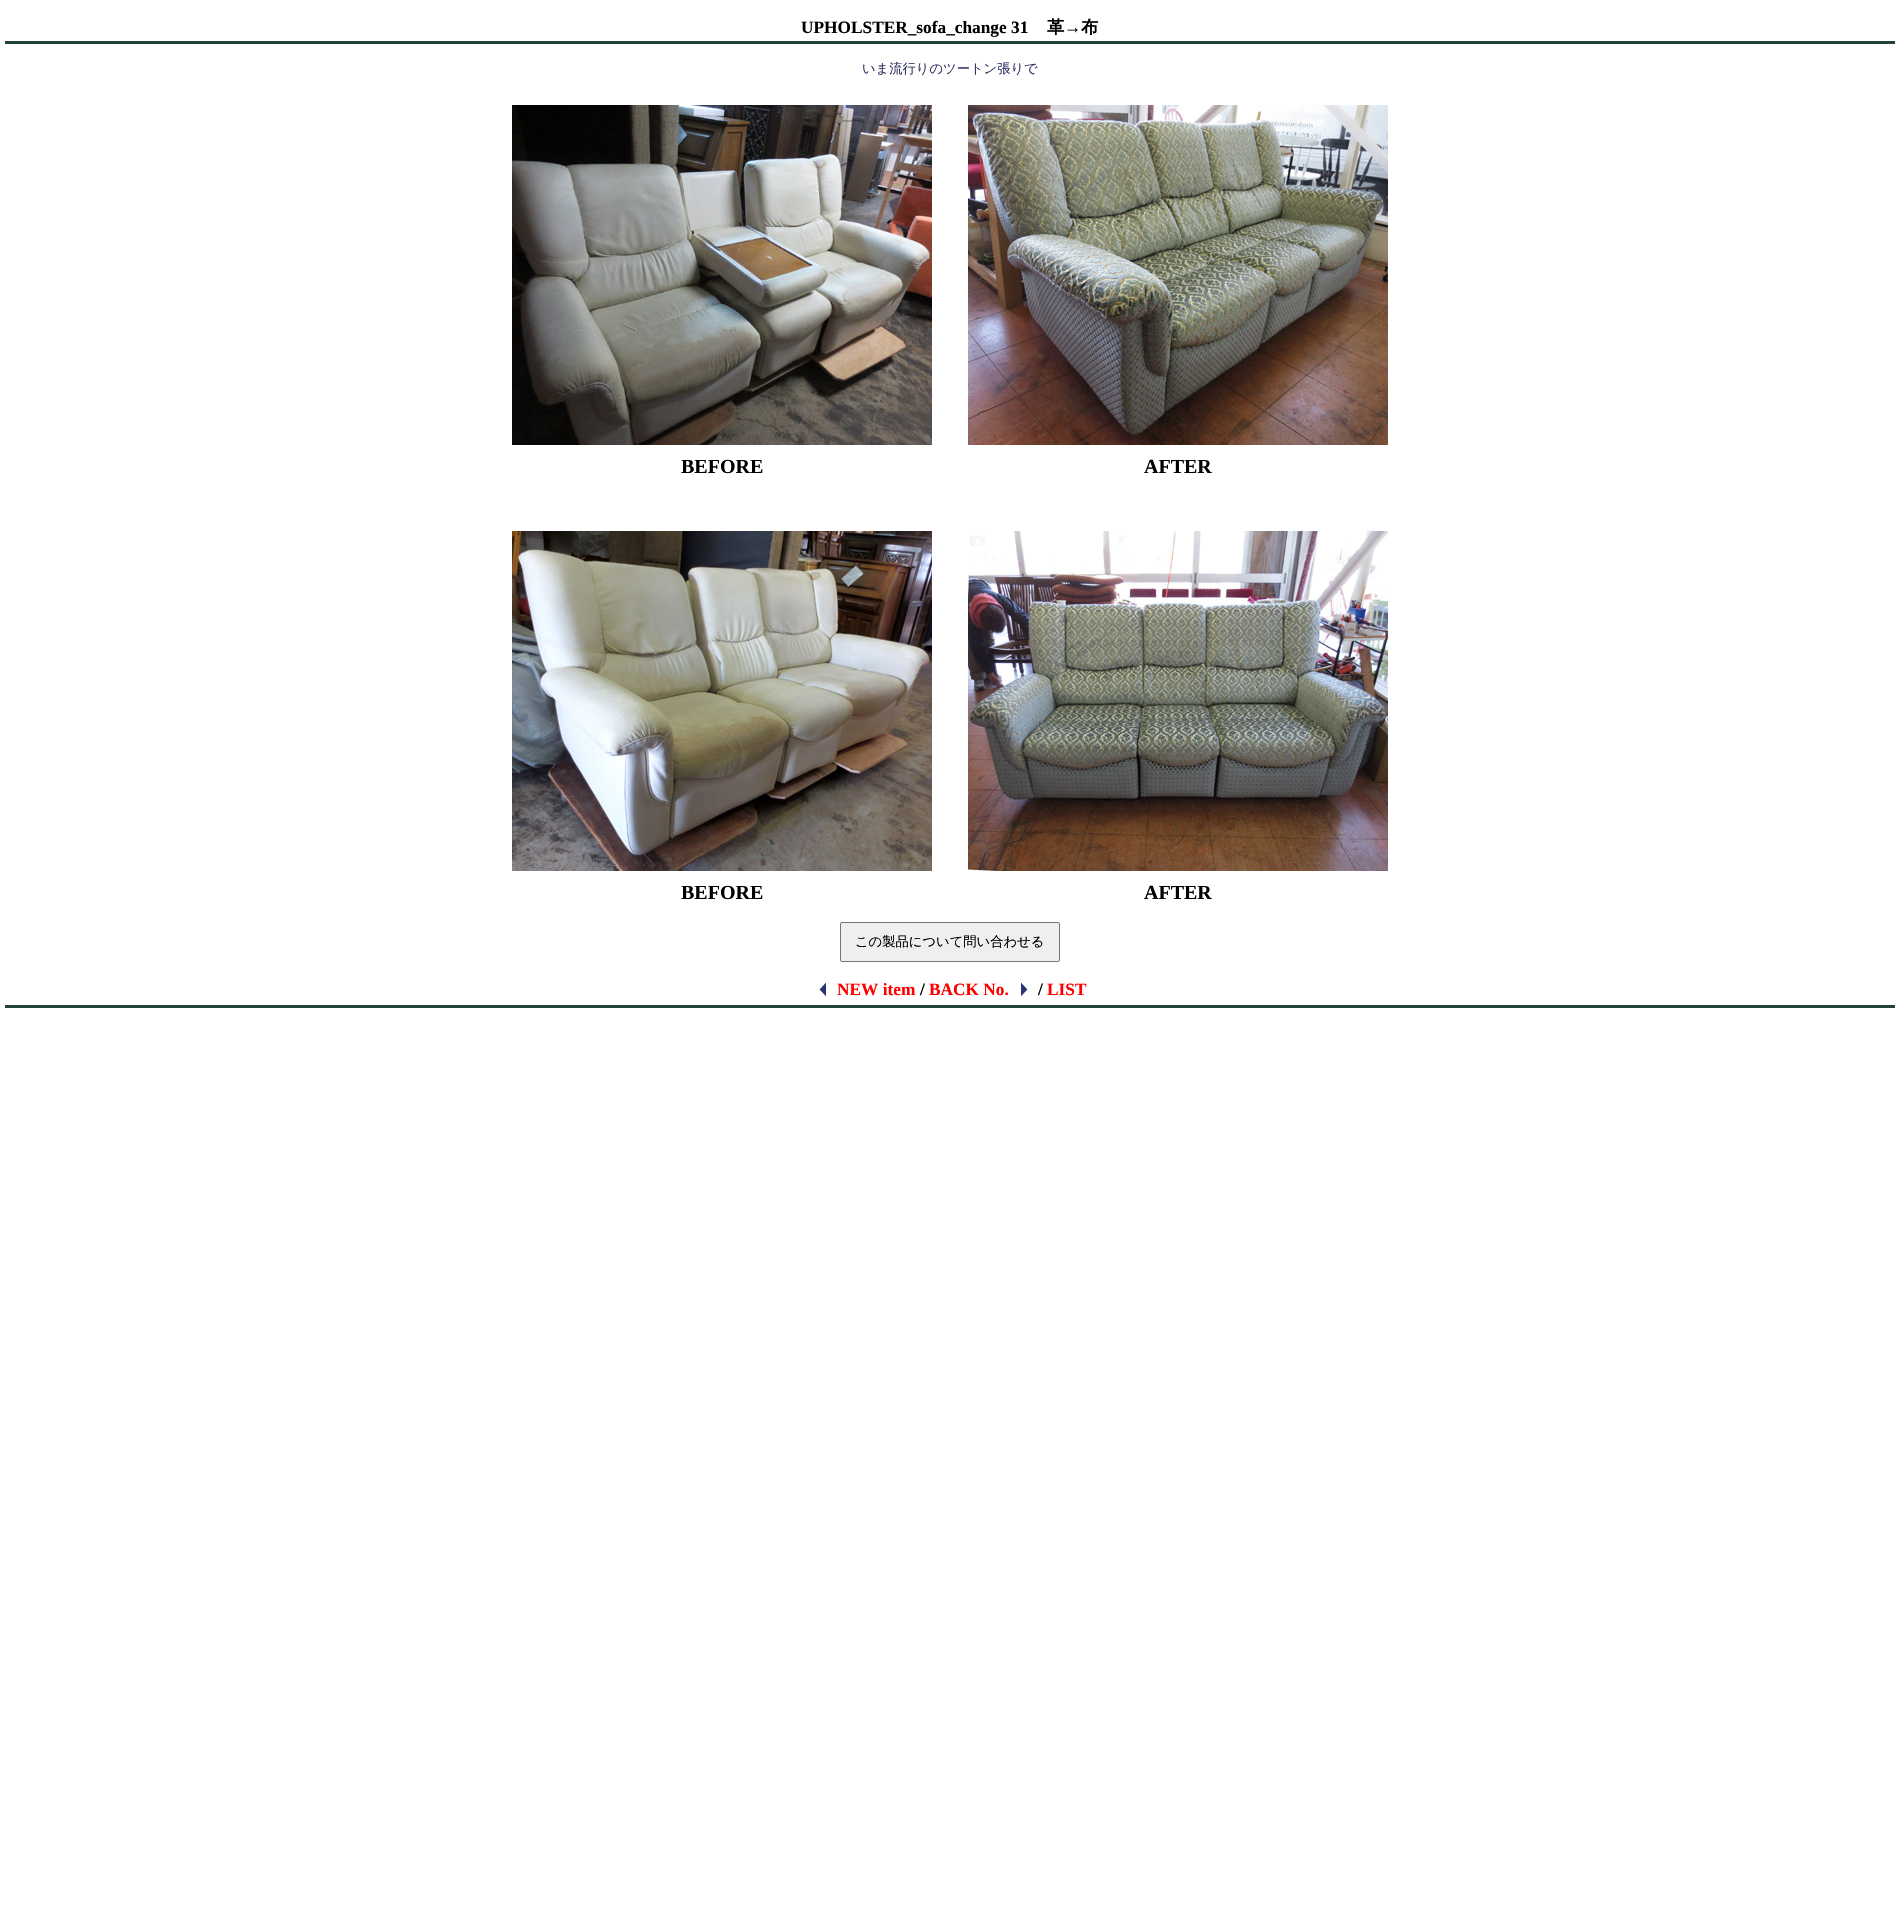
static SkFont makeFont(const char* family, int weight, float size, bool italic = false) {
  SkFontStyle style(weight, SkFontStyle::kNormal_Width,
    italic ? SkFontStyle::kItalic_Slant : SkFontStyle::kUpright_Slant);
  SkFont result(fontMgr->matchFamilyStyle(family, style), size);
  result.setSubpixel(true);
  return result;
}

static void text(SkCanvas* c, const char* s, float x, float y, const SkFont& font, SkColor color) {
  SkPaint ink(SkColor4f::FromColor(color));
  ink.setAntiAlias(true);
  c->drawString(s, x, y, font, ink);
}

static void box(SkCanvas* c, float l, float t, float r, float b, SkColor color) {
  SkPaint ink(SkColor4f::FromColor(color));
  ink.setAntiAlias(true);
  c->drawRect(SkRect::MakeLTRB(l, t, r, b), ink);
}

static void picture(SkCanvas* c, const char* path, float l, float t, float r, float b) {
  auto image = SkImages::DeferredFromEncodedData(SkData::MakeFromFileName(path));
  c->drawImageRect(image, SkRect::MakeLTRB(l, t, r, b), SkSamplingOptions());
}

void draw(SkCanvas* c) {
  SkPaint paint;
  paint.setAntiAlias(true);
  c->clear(0xffffffff);
  box(c, 5, 41, 1895, 44, 0xff204537);
  SkFont face1 = makeFont("Liberation Serif", 700, 17.3f);
  text(c, "UPHOLSTER_sofa_change 31", 801, 33, face1, 0xff000000);
  SkFont face2 = makeFont("WenQuanYi Zen Hei", 700, 17.3f);
  text(c, "革", 1047, 33, face2, 0xff000000);
  text(c, "→", 1064, 33, face1, 0xff000000);
  text(c, "布", 1081, 33, face2, 0xff000000);
  SkFont face3 = makeFont("WenQuanYi Zen Hei", 500, 13.3f);
  text(c, "いま流行りのツートン張りで", 862, 73, face3, 0xff333366);
  picture(c, "img_01.png", 512, 105, 932, 445);
  SkFont face4 = makeFont("Liberation Serif", 700, 20);
  text(c, "BEFORE", 681, 473, face4, 0xff000000);
  picture(c, "img_02.png", 968, 105, 1388, 445);
  text(c, "AFTER", 1144, 473, face4, 0xff000000);
  picture(c, "img_03.png", 512, 531, 932, 871);
  text(c, "BEFORE", 681, 899, face4, 0xff000000);
  picture(c, "img_04.png", 968, 531, 1388, 871);
  text(c, "AFTER", 1144, 899, face4, 0xff000000);
  paint.setColor(0xffefefef);
  c->drawRoundRect(SkRect::MakeLTRB(840.5f, 922.5f, 1059.5f, 961.5f), 1.5f, 1.5f, paint);
  paint.setStyle(SkPaint::kStroke_Style);
  paint.setStrokeWidth(1);
  paint.setColor(0xff767676);
  c->drawRoundRect(SkRect::MakeLTRB(840.5f, 922.5f, 1059.5f, 961.5f), 1.5f, 1.5f, paint);
  text(c, "この製品について問い合わせる", 855, 946, face3, 0xff000000);
  box(c, 5, 1005, 1895, 1008, 0xff204537);
  picture(c, "img_05.png", 819, 983, 826, 996);
  text(c, "NEW item", 837, 995, face1, 0xffff0000);
  text(c, "/", 920, 995, face1, 0xff000000);
  text(c, "BACK No.", 929, 995, face1, 0xffff0000);
  picture(c, "img_06.png", 1021, 983, 1027, 996);
  text(c, "/", 1038, 995, face1, 0xff000000);
  text(c, "LIST", 1047, 995, face1, 0xffff0000);
}
